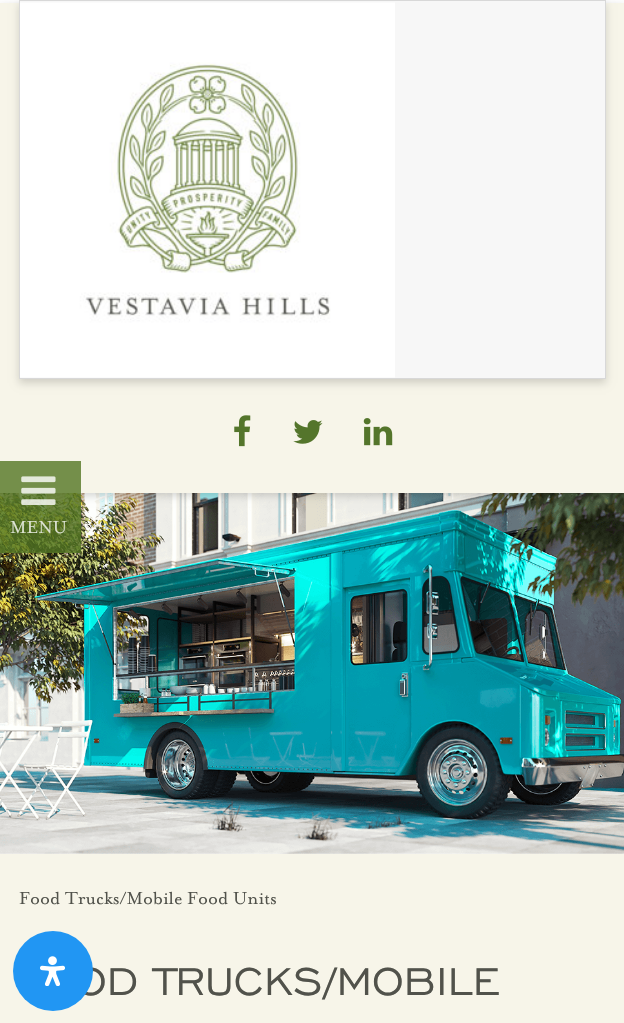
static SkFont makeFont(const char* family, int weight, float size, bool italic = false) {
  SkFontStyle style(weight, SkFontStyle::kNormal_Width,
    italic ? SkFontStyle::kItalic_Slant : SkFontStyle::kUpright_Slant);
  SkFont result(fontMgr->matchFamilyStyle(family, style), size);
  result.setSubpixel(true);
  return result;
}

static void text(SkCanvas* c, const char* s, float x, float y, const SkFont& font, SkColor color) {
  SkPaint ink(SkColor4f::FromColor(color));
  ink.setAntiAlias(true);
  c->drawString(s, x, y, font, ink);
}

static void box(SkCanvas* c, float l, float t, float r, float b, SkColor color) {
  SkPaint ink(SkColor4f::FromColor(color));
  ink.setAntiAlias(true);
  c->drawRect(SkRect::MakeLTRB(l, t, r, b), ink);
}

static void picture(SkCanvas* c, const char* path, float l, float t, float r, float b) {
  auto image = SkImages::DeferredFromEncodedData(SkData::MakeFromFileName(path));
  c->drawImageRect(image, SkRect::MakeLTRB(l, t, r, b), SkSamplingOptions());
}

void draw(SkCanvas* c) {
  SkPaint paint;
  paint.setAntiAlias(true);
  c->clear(0xffffffff);
  picture(c, "img_05.png", 0, 493, 624, 854);
  paint.setColor(0x29000000);
  paint.setMaskFilter(SkMaskFilter::MakeBlur(kNormal_SkBlurStyle, 4));
  c->drawRect(SkRect::MakeLTRB(0, 6, 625, 496), paint);
  paint.setMaskFilter(nullptr);
  box(c, 0, 3, 624, 493, 0xfff7f5e9);
  paint.setMaskFilter(SkMaskFilter::MakeBlur(kNormal_SkBlurStyle, 4));
  c->drawRect(SkRect::MakeLTRB(19, 4, 606, 383), paint);
  paint.setMaskFilter(nullptr);
  paint.setColor(0xfff7f7f7);
  c->drawRect(SkRect::MakeLTRB(19.5f, 0.5f, 605.5f, 378.5f), paint);
  paint.setStyle(SkPaint::kStroke_Style);
  paint.setStrokeWidth(1);
  paint.setColor(0xffd8d8d8);
  c->drawRect(SkRect::MakeLTRB(19.5f, 0.5f, 605.5f, 378.5f), paint);
  picture(c, "img_01.png", 20, 2, 395, 378);
  picture(c, "img_02.png", 234, 415, 251, 447);
  picture(c, "img_03.png", 293, 420, 323, 444);
  picture(c, "img_04.png", 363, 418, 393, 446);
  box(c, 0, 461, 81, 553, 0xcc537522);
  picture(c, "img_06.png", 21, 476, 56, 505);
  SkFont face1 = makeFont("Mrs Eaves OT", 400, 20);
  text(c, "MENU", 10, 533, face1, 0xffdde3d3);
  box(c, 0, 854, 624, 1023, 0xfff7f5e9);
  text(c, "Food Trucks/Mobile Food Units", 19, 904, face1, 0xff51524b);
  SkFont face2 = makeFont("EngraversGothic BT", 400, 49.75f);
  text(c, "OD TRUCKS/MOBILE", 75, 995, face2, 0xff51524b);
  paint.setStyle(SkPaint::kFill_Style);
  paint.setColor(0xff2196f3);
  c->drawCircle(53, 971, 40, paint);
  picture(c, "img_07.png", 40, 956, 65, 986);
}
